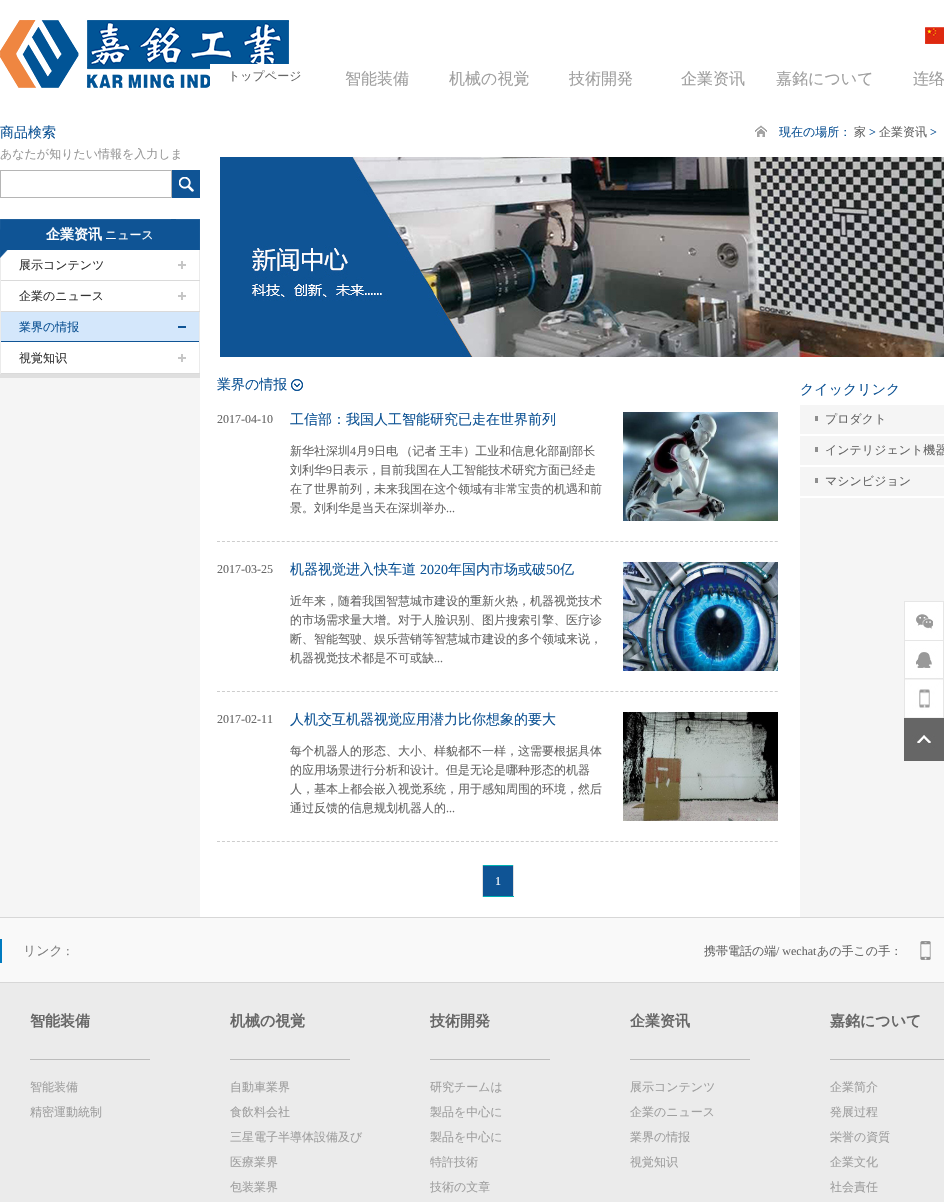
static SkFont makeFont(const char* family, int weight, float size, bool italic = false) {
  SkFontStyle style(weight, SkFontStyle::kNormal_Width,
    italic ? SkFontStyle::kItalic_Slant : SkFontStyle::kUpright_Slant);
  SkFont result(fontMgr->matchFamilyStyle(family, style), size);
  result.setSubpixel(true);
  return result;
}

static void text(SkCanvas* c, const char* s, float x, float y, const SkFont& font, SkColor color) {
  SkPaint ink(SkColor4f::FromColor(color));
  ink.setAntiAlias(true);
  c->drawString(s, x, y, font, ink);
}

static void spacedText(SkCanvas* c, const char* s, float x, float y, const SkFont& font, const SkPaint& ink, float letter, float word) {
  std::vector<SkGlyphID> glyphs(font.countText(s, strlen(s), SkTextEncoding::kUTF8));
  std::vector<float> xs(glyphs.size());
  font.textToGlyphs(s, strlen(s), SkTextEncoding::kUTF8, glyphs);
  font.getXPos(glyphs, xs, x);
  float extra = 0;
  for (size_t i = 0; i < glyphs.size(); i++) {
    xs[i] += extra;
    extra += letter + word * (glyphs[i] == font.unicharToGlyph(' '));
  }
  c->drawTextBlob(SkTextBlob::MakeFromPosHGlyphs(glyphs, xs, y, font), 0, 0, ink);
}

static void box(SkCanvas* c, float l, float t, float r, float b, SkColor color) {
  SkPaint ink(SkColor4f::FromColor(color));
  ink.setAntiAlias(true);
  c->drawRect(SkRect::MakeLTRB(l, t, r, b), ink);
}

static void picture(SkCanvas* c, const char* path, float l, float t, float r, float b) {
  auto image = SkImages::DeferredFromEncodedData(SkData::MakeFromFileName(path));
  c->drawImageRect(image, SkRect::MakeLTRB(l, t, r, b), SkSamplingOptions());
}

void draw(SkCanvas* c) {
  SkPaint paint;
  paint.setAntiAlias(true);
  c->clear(0xffffffff);
  picture(c, "img_01.png", 0, 20, 289, 88);
  picture(c, "img_02.png", 925, 27, 944, 44);
  box(c, 210, 64, 289, 88, 0xffffffff);
  SkFont face1 = makeFont("WenQuanYi Zen Hei", 500, 12);
  text(c, "トップページ", 228, 80, face1, 0xff666666);
  SkFont face2 = makeFont("WenQuanYi Zen Hei", 500, 16);
  text(c, "智能装備", 345, 84, face2, 0xff9f9f9f);
  text(c, "机械の視覚", 449, 84, face2, 0xff9f9f9f);
  text(c, "技術開発", 569, 84, face2, 0xff9f9f9f);
  text(c, "企業资讯", 681, 84, face2, 0xff9f9f9f);
  text(c, "嘉銘について", 776, 84, face2, 0xff9f9f9f);
  text(c, "连络", 913, 84, face2, 0xff9f9f9f);
  picture(c, "img_03.png", 0, 219, 944, 917);
  SkFont face3 = makeFont("WenQuanYi Zen Hei", 500, 14);
  text(c, "商品検索", 0, 137, face3, 0xff0f5495);
  text(c, "あなたが知りたい情報を入力しま", 0, 158, face1, 0xff999999);
  paint.setStyle(SkPaint::kStroke_Style);
  paint.setStrokeWidth(1);
  paint.setColor(0xffb5b5b5);
  c->drawRect(SkRect::MakeLTRB(0.5f, 170.5f, 171.5f, 197.5f), paint);
  picture(c, "img_04.png", 172, 170, 200, 198);
  picture(c, "img_05.png", 755, 125, 767, 137);
  text(c, "現在の場所：", 779, 136, face1, 0xff0f5495);
  text(c, "家", 854, 136, face1, 0xff666666);
  SkFont face4 = makeFont("Liberation Serif", 400, 12);
  text(c, ">", 869, 136, face4, 0xff0f5495);
  text(c, "企業资讯", 879, 136, face1, 0xff666666);
  text(c, ">", 930, 136, face4, 0xff0f5495);
  picture(c, "img_06.png", 220, 157, 944, 357);
  text(c, "業界の情报", 217, 389, face3, 0xff0f5495);
  picture(c, "img_07.png", 291, 379, 303, 391);
  box(c, 800, 357, 944, 405, 0xffffffff);
  text(c, "クイックリンク", 800, 394, face3, 0xff0f5495);
  box(c, 815, 416, 818, 421, 0xff8e8e8e);
  box(c, 800, 434, 944, 436, 0xffffffff);
  text(c, "プロダクト", 825, 423, face1, 0xff666666);
  box(c, 815, 447, 818, 452, 0xff8e8e8e);
  box(c, 800, 465, 944, 467, 0xffffffff);
  text(c, "インテリジェント機器", 825, 454, face1, 0xff666666);
  box(c, 815, 478, 818, 483, 0xff8e8e8e);
  box(c, 800, 496, 944, 498, 0xffffffff);
  text(c, "マシンビジョン", 825, 485, face1, 0xff666666);
  paint.setColor(0xffcdcdcd);
  paint.setPathEffect(SkDashPathEffect::Make({{3, 1.98f}}, 0));
  c->drawPath(SkPathBuilder().moveTo(217, 541.5f).lineTo(778, 541.5f).detach(), paint);
  paint.setPathEffect(nullptr);
  text(c, "2017-04-10", 217, 423, face4, 0xff666666);
  text(c, "工信部：我国人工智能研究已走在世界前列", 290, 424, face3, 0xff0f5495);
  picture(c, "img_08.png", 623, 412, 778, 521);
  text(c, "新华社深圳", 290, 455, face1, 0xff666666);
  text(c, "4", 350, 455, face4, 0xff666666);
  text(c, "月", 356, 455, face1, 0xff666666);
  text(c, "9", 368, 455, face4, 0xff666666);
  paint.setStyle(SkPaint::kFill_Style);
  paint.setColor(0xff666666);
  spacedText(c, "日电 （记者 王丰）工业和信息化部副部长", 374, 455, face1, paint, 0, -1);
  text(c, "刘利华", 290, 474, face1, 0xff666666);
  text(c, "9", 326, 474, face4, 0xff666666);
  text(c, "日表示，目前我国在人工智能技术研究方面已经走", 332, 474, face1, 0xff666666);
  text(c, "在了世界前列，未来我国在这个领域有非常宝贵的机遇和前", 290, 493, face1, 0xff666666);
  text(c, "景。刘利华是当天在深圳举办", 290, 512, face1, 0xff666666);
  text(c, "...", 446, 512, face4, 0xff666666);
  paint.setStyle(SkPaint::kStroke_Style);
  paint.setColor(0xffcdcdcd);
  paint.setPathEffect(SkDashPathEffect::Make({{3, 1.98f}}, 0));
  c->drawPath(SkPathBuilder().moveTo(217, 691.5f).lineTo(778, 691.5f).detach(), paint);
  paint.setPathEffect(nullptr);
  text(c, "2017-03-25", 217, 573, face4, 0xff666666);
  text(c, "机器视觉进入快车道", 290, 574, face3, 0xff0f5495);
  SkFont face5 = makeFont("Liberation Serif", 400, 14);
  text(c, "2020", 420, 574, face5, 0xff0f5495);
  text(c, "年国内市场或破", 448, 574, face3, 0xff0f5495);
  text(c, "50", 546, 574, face5, 0xff0f5495);
  text(c, "亿", 560, 574, face3, 0xff0f5495);
  picture(c, "img_09.png", 623, 562, 778, 671);
  text(c, "近年来，随着我国智慧城市建设的重新火热，机器视觉技术", 290, 605, face1, 0xff666666);
  text(c, "的市场需求量大增。对于人脸识别、图片搜索引擎、医疗诊", 290, 624, face1, 0xff666666);
  text(c, "断、智能驾驶、娱乐营销等智慧城市建设的多个领域来说，", 290, 643, face1, 0xff666666);
  text(c, "机器视觉技术都是不可或缺", 290, 662, face1, 0xff666666);
  text(c, "...", 434, 662, face4, 0xff666666);
  paint.setPathEffect(SkDashPathEffect::Make({{3, 1.98f}}, 0));
  c->drawPath(SkPathBuilder().moveTo(217, 841.5f).lineTo(778, 841.5f).detach(), paint);
  paint.setPathEffect(nullptr);
  text(c, "2017-02-11", 217, 723, face4, 0xff666666);
  text(c, "人机交互机器视觉应用潜力比你想象的要大", 290, 724, face3, 0xff0f5495);
  picture(c, "img_10.png", 623, 712, 778, 821);
  text(c, "每个机器人的形态、大小、样貌都不一样，这需要根据具体", 290, 755, face1, 0xff666666);
  text(c, "的应用场景进行分析和设计。但是无论是哪种形态的机器", 290, 774, face1, 0xff666666);
  text(c, "人，基本上都会嵌入视觉系统，用于感知周围的环境，然后", 290, 793, face1, 0xff666666);
  text(c, "通过反馈的信息规划机器人的", 290, 812, face1, 0xff666666);
  text(c, "...", 446, 812, face4, 0xff666666);
  box(c, 482, 865, 483, 897, 0xffdfdfdf);
  box(c, 483, 866, 513, 896, 0xff0f5495);
  box(c, 483, 865, 514, 866, 0xff00b1b3);
  box(c, 513, 865, 514, 897, 0xffdfdfdf);
  box(c, 483, 896, 514, 897, 0xff00b1b3);
  text(c, "1", 495, 885, face4, 0xffffffff);
  box(c, 1, 250, 199, 373, 0xffffffff);
  box(c, 199, 250, 200, 374, 0xffebebeb);
  box(c, 0, 280, 200, 281, 0xffdadada);
  box(c, 0, 250, 1, 281, 0xffebebeb);
  picture(c, "img_11.png", 0, 219, 200, 258);
  SkFont face6 = makeFont("WenQuanYi Zen Hei", 700, 14);
  text(c, "企業资讯", 46, 239, face6, 0xffffffff);
  text(c, "ニュース", 105, 239, face1, 0xffffffff);
  box(c, 0, 374, 200, 378, 0xffdfdfdf);
  picture(c, "img_12.png", 178, 261, 186, 269);
  text(c, "展示コンテンツ", 19, 269, face1, 0xff333333);
  picture(c, "img_12.png", 178, 292, 186, 300);
  box(c, 0, 311, 200, 312, 0xffdadada);
  box(c, 0, 281, 1, 343, 0xffebebeb);
  text(c, "企業のニュース", 19, 300, face1, 0xff333333);
  picture(c, "img_13.png", 1, 312, 199, 342);
  text(c, "業界の情报", 19, 331, face1, 0xff0f5495);
  picture(c, "img_12.png", 178, 354, 186, 362);
  box(c, 0, 373, 200, 374, 0xffdadada);
  box(c, 0, 343, 1, 374, 0xffebebeb);
  text(c, "視覚知识", 19, 362, face1, 0xff333333);
  picture(c, "img_14.png", 904, 601, 944, 640);
  picture(c, "img_15.png", 904, 640, 944, 679);
  picture(c, "img_16.png", 904, 679, 944, 718);
  picture(c, "img_17.png", 904, 718, 944, 761);
  box(c, 0, 918, 944, 982, 0xfff9f9f9);
  box(c, 0, 917, 944, 918, 0xffd7d7d7);
  box(c, 0, 982, 944, 983, 0xffd7d7d7);
  box(c, 0, 939, 2, 963, 0xff007bc0);
  SkFont face7 = makeFont("WenQuanYi Zen Hei", 500, 13);
  text(c, "リンク", 23, 955, face7, 0xff7f7f7f);
  SkFont face8 = makeFont("Liberation Serif", 400, 13);
  text(c, ":", 66, 955, face8, 0xff7f7f7f);
  text(c, "携帯電話の端", 704, 955, face1, 0xff666666);
  text(c, "/ wechat", 776, 955, face4, 0xff666666);
  text(c, "あの手この手：", 817, 955, face1, 0xff666666);
  picture(c, "img_18.png", 920, 941, 931, 960);
  box(c, 0, 983, 944, 1202, 0xffebebeb);
  box(c, 30, 1059, 150, 1060, 0xffbbbbbb);
  SkFont face9 = makeFont("WenQuanYi Zen Hei", 700, 15);
  text(c, "智能装備", 30, 1026, face9, 0xff666666);
  text(c, "智能装備", 30, 1091, face1, 0xff9f9f9f);
  text(c, "精密運動統制", 30, 1116, face1, 0xff9f9f9f);
  box(c, 230, 1059, 350, 1060, 0xffbbbbbb);
  text(c, "机械の視覚", 230, 1026, face9, 0xff666666);
  text(c, "自動車業界", 230, 1091, face1, 0xff9f9f9f);
  text(c, "食飲料会社", 230, 1116, face1, 0xff9f9f9f);
  text(c, "三星電子半導体設備及び", 230, 1141, face1, 0xff9f9f9f);
  text(c, "医療業界", 230, 1166, face1, 0xff9f9f9f);
  text(c, "包装業界", 230, 1191, face1, 0xff9f9f9f);
  box(c, 430, 1059, 550, 1060, 0xffbbbbbb);
  text(c, "技術開発", 430, 1026, face9, 0xff666666);
  text(c, "研究チームは", 430, 1091, face1, 0xff9f9f9f);
  text(c, "製品を中心に", 430, 1116, face1, 0xff9f9f9f);
  text(c, "製品を中心に", 430, 1141, face1, 0xff9f9f9f);
  text(c, "特許技術", 430, 1166, face1, 0xff9f9f9f);
  text(c, "技術の文章", 430, 1191, face1, 0xff9f9f9f);
  box(c, 630, 1059, 750, 1060, 0xffbbbbbb);
  text(c, "企業资讯", 630, 1026, face9, 0xff666666);
  text(c, "展示コンテンツ", 630, 1091, face1, 0xff9f9f9f);
  text(c, "企業のニュース", 630, 1116, face1, 0xff9f9f9f);
  text(c, "業界の情报", 630, 1141, face1, 0xff9f9f9f);
  text(c, "視覚知识", 630, 1166, face1, 0xff9f9f9f);
  box(c, 830, 1059, 944, 1060, 0xffbbbbbb);
  text(c, "嘉銘について", 830, 1026, face9, 0xff666666);
  text(c, "企業简介", 830, 1091, face1, 0xff9f9f9f);
  text(c, "発展过程", 830, 1116, face1, 0xff9f9f9f);
  text(c, "栄誉の資質", 830, 1141, face1, 0xff9f9f9f);
  text(c, "企業文化", 830, 1166, face1, 0xff9f9f9f);
  text(c, "社会責任", 830, 1191, face1, 0xff9f9f9f);
}
